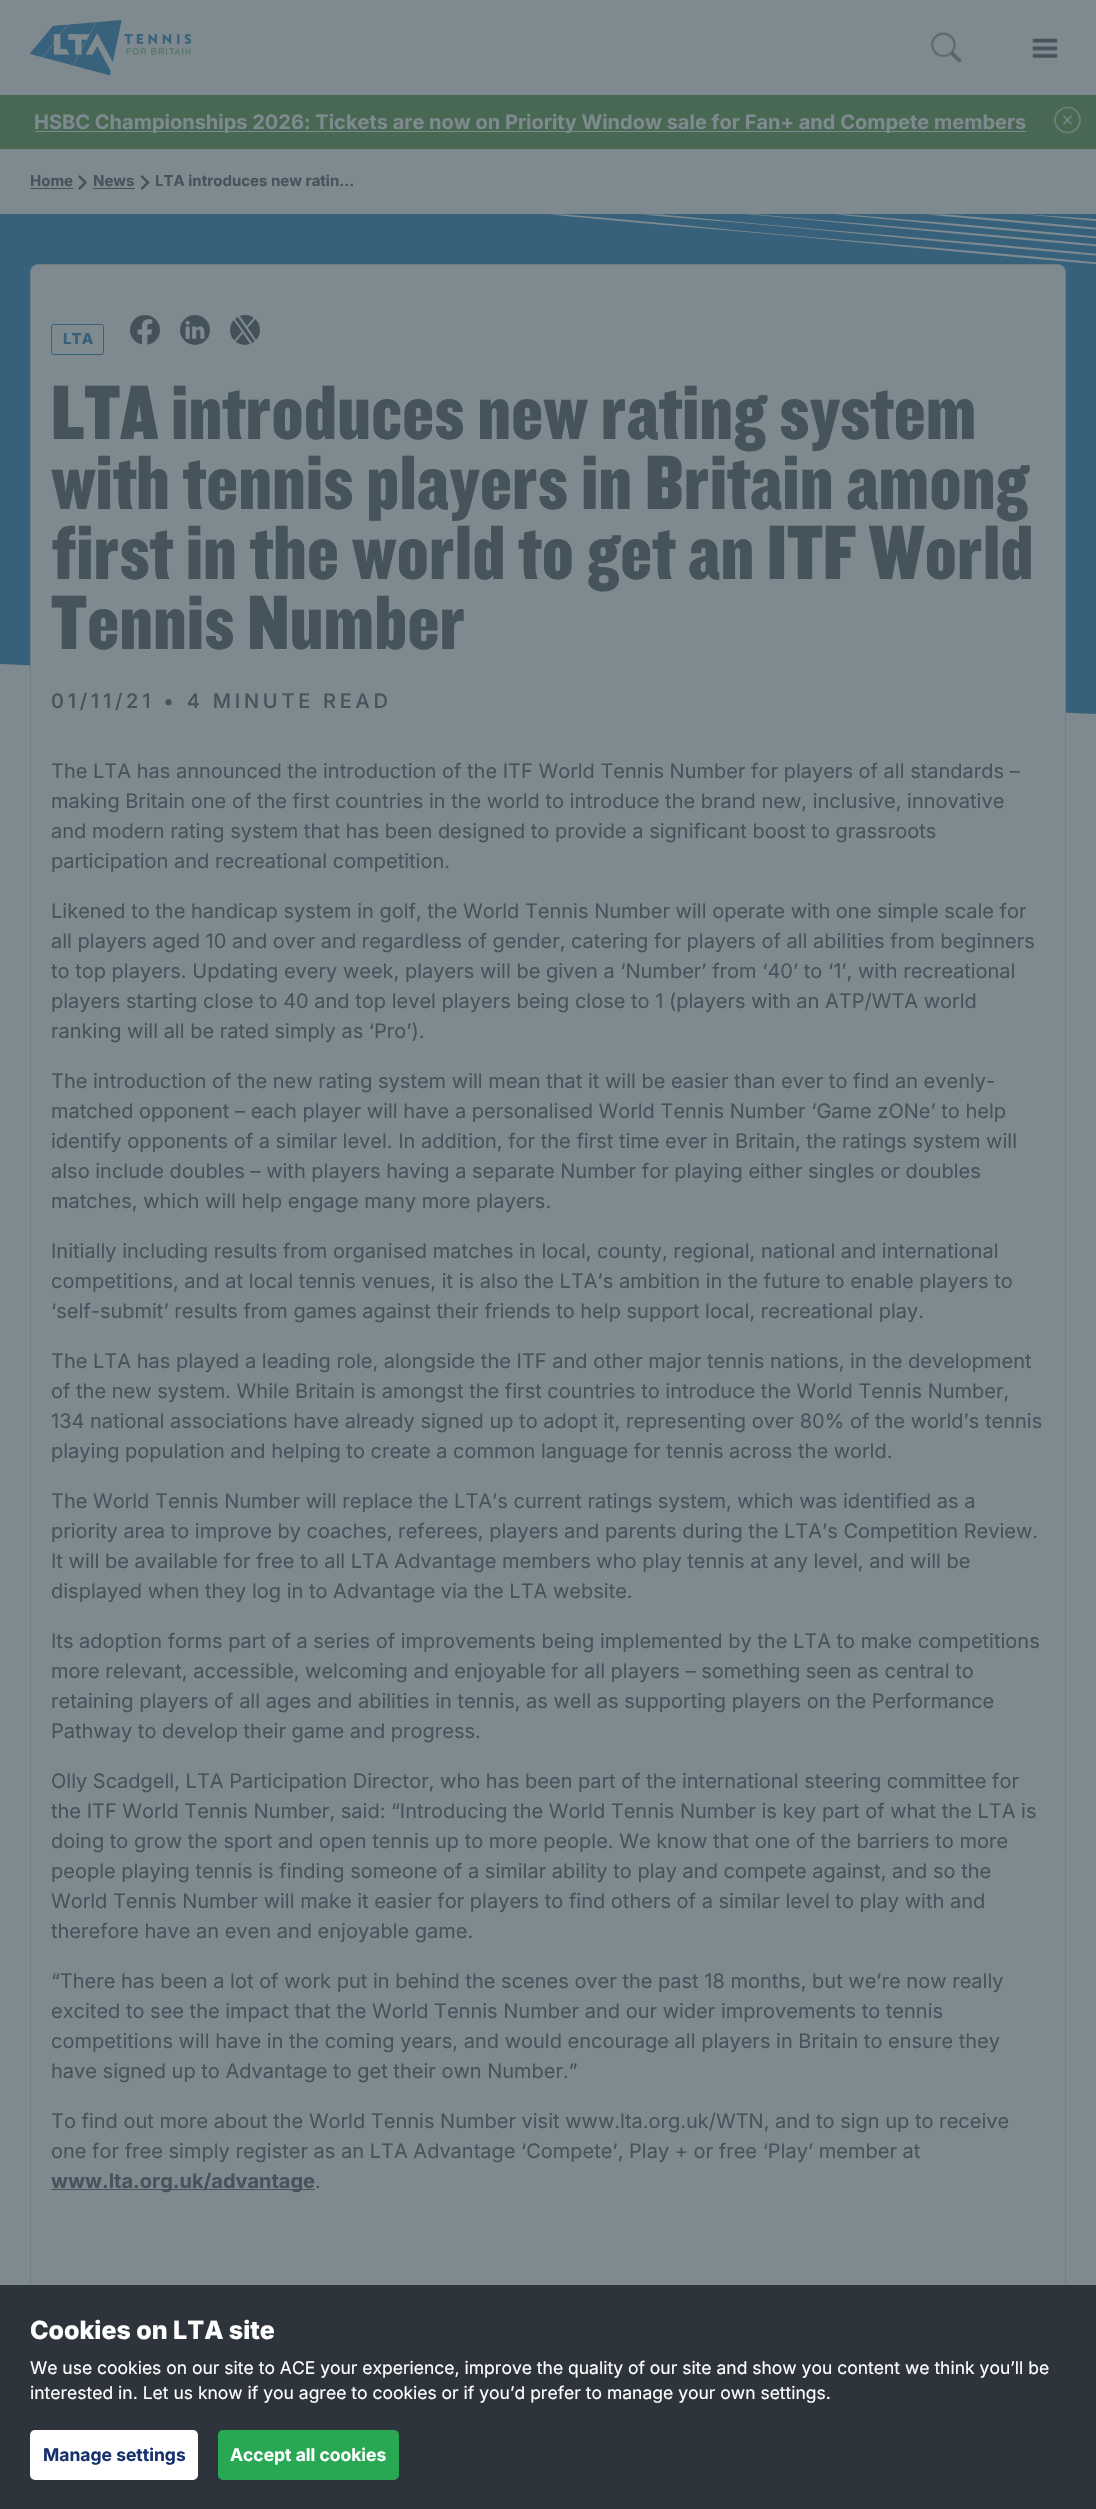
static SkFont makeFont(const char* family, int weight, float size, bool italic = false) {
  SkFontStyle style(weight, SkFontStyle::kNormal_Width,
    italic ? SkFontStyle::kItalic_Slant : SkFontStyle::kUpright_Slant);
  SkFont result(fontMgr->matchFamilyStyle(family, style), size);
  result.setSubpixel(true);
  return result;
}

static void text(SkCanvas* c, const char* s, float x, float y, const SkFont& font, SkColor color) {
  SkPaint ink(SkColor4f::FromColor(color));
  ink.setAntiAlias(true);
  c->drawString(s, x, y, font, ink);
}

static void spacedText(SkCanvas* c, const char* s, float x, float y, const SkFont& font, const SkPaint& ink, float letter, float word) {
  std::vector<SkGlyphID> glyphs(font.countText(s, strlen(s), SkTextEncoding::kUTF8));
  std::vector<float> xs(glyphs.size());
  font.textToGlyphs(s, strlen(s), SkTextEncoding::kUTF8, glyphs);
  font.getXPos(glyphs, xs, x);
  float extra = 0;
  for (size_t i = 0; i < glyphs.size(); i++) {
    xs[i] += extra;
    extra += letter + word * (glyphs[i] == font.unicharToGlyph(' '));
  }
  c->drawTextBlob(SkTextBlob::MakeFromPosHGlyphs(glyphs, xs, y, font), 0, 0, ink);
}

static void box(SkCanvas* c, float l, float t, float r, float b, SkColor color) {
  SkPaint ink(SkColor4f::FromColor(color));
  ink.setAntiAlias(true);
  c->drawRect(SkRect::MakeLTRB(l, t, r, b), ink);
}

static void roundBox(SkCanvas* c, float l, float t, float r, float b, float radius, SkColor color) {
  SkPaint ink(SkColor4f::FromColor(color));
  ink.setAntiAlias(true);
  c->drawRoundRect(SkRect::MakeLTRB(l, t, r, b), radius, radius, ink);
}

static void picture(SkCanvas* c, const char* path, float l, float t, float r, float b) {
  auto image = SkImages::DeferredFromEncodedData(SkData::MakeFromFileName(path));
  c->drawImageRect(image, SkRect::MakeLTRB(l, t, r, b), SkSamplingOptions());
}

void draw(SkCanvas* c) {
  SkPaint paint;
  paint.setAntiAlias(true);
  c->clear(0xff7e8a8f);
  picture(c, "img_01.png", 30, 20, 191, 75);
  picture(c, "img_02.png", 931, 32, 962, 63);
  picture(c, "img_03.png", 1032, 38, 1058, 58);
  box(c, 0, 95, 1096, 149, 0xff496853);
  box(c, 35, 131, 1026, 132, 0xff7e8a8f);
  SkFont face1 = makeFont("Inter", 700, 20);
  text(c, "HSBC Championships 2026: Tickets are now on Priority Window sale for Fan+ and Compete members", 34, 129, face1, 0xff7e8a8f);
  picture(c, "img_04.png", 1053, 106, 1081, 134);
  SkFont face2 = makeFont("Inter", 700, 15);
  text(c, "Home", 30, 186, face2, 0xff45535a);
  box(c, 30, 188, 73, 189, 0xff45535a);
  picture(c, "img_05.png", 78, 175, 88, 190);
  text(c, "News", 93, 186, face2, 0xff45535a);
  box(c, 93, 188, 135, 189, 0xff45535a);
  picture(c, "img_06.png", 140, 175, 150, 190);
  text(c, "LTA introduces new ratin…", 155, 186, face2, 0xff45535a);
  paint.setColor(0xff37617b);
  c->drawPath(SkPathBuilder().moveTo(0, 214).lineTo(0, 664).lineTo(1096, 714).lineTo(1096, 214).close().detach(), paint);
  picture(c, "img_07.png", 549, 214, 1096, 264);
  paint.setColor(0xff7e8a8f);
  c->drawRoundRect(SkRect::MakeLTRB(30.5f, 264.5f, 1065.5f, 2295.5f), 7.5f, 7.5f, paint);
  paint.setStyle(SkPaint::kStroke_Style);
  paint.setStrokeWidth(1);
  paint.setColor(0xff707e84);
  c->drawRoundRect(SkRect::MakeLTRB(30.5f, 264.5f, 1065.5f, 2295.5f), 7.5f, 7.5f, paint);
  paint.setColor(0xff37617b);
  c->drawRoundRect(SkRect::MakeLTRB(51.5f, 324.5f, 103.5f, 354.5f), 2, 2, paint);
  SkFont face3 = makeFont("Inter", 800, 15);
  text(c, "LTA", 63, 344, face3, 0xff37617b);
  paint.setStyle(SkPaint::kFill_Style);
  paint.setColor(0xff435259);
  c->drawCircle(145, 330, 15, paint);
  picture(c, "img_08.png", 137, 319, 153, 345);
  c->drawCircle(195, 330, 15, paint);
  picture(c, "img_09.png", 185, 320, 205, 339);
  c->drawCircle(245, 330, 15, paint);
  picture(c, "img_10.png", 233, 316, 256, 344);
  SkFont face4 = makeFont("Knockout", 400, 80);
  text(c, "LTA introduces new rating system", 51, 439, face4, 0xff45535a);
  text(c, "with tennis players in Britain among", 51, 509, face4, 0xff45535a);
  text(c, "first in the world to get an ITF World", 51, 579, face4, 0xff45535a);
  text(c, "Tennis Number", 51, 649, face4, 0xff45535a);
  SkFont face5 = makeFont("Inter", 500, 20);
  paint.setColor(0xff45535a);
  spacedText(c, "01/11/21 • 4 MINUTE READ", 51, 708, face5, paint, 3.75f, 0);
  SkFont face6 = makeFont("Inter", 400, 20);
  text(c, "The LTA has announced the introduction of the ITF World Tennis Number for players of all standards –", 51, 778, face6, 0xff45535a);
  text(c, "making Britain one of the first countries in the world to introduce the brand new, inclusive, innovative", 51, 808, face6, 0xff45535a);
  text(c, "and modern rating system that has been designed to provide a significant boost to grassroots", 51, 838, face6, 0xff45535a);
  text(c, "participation and recreational competition.", 51, 868, face6, 0xff45535a);
  text(c, "Likened to the handicap system in golf, the World Tennis Number will operate with one simple scale for", 51, 918, face6, 0xff45535a);
  text(c, "all players aged 10 and over and regardless of gender, catering for players of all abilities from beginners", 51, 948, face6, 0xff45535a);
  text(c, "to top players. Updating every week, players will be given a ‘Number’ from ‘40’ to ‘1’, with recreational", 51, 978, face6, 0xff45535a);
  text(c, "players starting close to 40 and top level players being close to 1 (players with an ATP/WTA world", 51, 1008, face6, 0xff45535a);
  text(c, "ranking will all be rated simply as ‘Pro’).", 51, 1038, face6, 0xff45535a);
  text(c, "The introduction of the new rating system will mean that it will be easier than ever to find an evenly-", 51, 1088, face6, 0xff45535a);
  text(c, "matched opponent – each player will have a personalised World Tennis Number ‘Game zONe’ to help", 51, 1118, face6, 0xff45535a);
  text(c, "identify opponents of a similar level. In addition, for the first time ever in Britain, the ratings system will", 51, 1148, face6, 0xff45535a);
  text(c, "also include doubles – with players having a separate Number for playing either singles or doubles", 51, 1178, face6, 0xff45535a);
  text(c, "matches, which will help engage many more players.", 51, 1208, face6, 0xff45535a);
  text(c, "Initially including results from organised matches in local, county, regional, national and international", 51, 1258, face6, 0xff45535a);
  text(c, "competitions, and at local tennis venues, it is also the LTA’s ambition in the future to enable players to", 51, 1288, face6, 0xff45535a);
  text(c, "‘self-submit’ results from games against their friends to help support local, recreational play.", 51, 1318, face6, 0xff45535a);
  text(c, "The LTA has played a leading role, alongside the ITF and other major tennis nations, in the development", 51, 1368, face6, 0xff45535a);
  text(c, "of the new system. While Britain is amongst the first countries to introduce the World Tennis Number,", 51, 1398, face6, 0xff45535a);
  text(c, "134 national associations have already signed up to adopt it, representing over 80% of the world’s tennis", 51, 1428, face6, 0xff45535a);
  text(c, "playing population and helping to create a common language for tennis across the world.", 51, 1458, face6, 0xff45535a);
  text(c, "The World Tennis Number will replace the LTA’s current ratings system, which was identified as a", 51, 1508, face6, 0xff45535a);
  text(c, "priority area to improve by coaches, referees, players and parents during the LTA’s Competition Review.", 51, 1538, face6, 0xff45535a);
  text(c, "It will be available for free to all LTA Advantage members who play tennis at any level, and will be", 51, 1568, face6, 0xff45535a);
  text(c, "displayed when they log in to Advantage via the LTA website.", 51, 1598, face6, 0xff45535a);
  text(c, "Its adoption forms part of a series of improvements being implemented by the LTA to make competitions", 51, 1648, face6, 0xff45535a);
  text(c, "more relevant, accessible, welcoming and enjoyable for all players – something seen as central to", 51, 1678, face6, 0xff45535a);
  text(c, "retaining players of all ages and abilities in tennis, as well as supporting players on the Performance", 51, 1708, face6, 0xff45535a);
  text(c, "Pathway to develop their game and progress.", 51, 1738, face6, 0xff45535a);
  text(c, "Olly Scadgell, LTA Participation Director, who has been part of the international steering committee for", 51, 1788, face6, 0xff45535a);
  text(c, "the ITF World Tennis Number, said: “Introducing the World Tennis Number is key part of what the LTA is", 51, 1818, face6, 0xff45535a);
  text(c, "doing to grow the sport and open tennis up to more people. We know that one of the barriers to more", 51, 1848, face6, 0xff45535a);
  text(c, "people playing tennis is finding someone of a similar ability to play and compete against, and so the", 51, 1878, face6, 0xff45535a);
  text(c, "World Tennis Number will make it easier for players to find others of a similar level to play with and", 51, 1908, face6, 0xff45535a);
  text(c, "therefore have an even and enjoyable game.", 51, 1938, face6, 0xff45535a);
  text(c, "“There has been a lot of work put in behind the scenes over the past 18 months, but we’re now really", 51, 1988, face6, 0xff45535a);
  text(c, "excited to see the impact that the World Tennis Number and our wider improvements to tennis", 51, 2018, face6, 0xff45535a);
  text(c, "competitions will have in the coming years, and would encourage all players in Britain to ensure they", 51, 2048, face6, 0xff45535a);
  text(c, "have signed up to Advantage to get their own Number.”", 51, 2078, face6, 0xff45535a);
  text(c, "To find out more about the World Tennis Number visit www.lta.org.uk/WTN, and to sign up to receive", 51, 2128, face6, 0xff45535a);
  text(c, "one for free simply register as an LTA Advantage ‘Compete’, Play + or free ‘Play’ member at", 51, 2158, face6, 0xff45535a);
  box(c, 51, 2189, 315, 2190, 0xff45535a);
  text(c, "www.lta.org.uk/advantage", 51, 2188, face1, 0xff45535a);
  text(c, ".", 315, 2188, face6, 0xff45535a);
  box(c, 0, 2285, 1096, 2509, 0xff2d343c);
  SkFont face7 = makeFont("Inter", 800, 25);
  text(c, "Cookies on LTA site", 30, 2339, face7, 0xffffffff);
  SkFont face8 = makeFont("Inter", 400, 17.5f);
  text(c, "We use cookies on our site to ACE your experience, improve the quality of our site and show you content we think you’ll be", 30, 2374, face8, 0xffffffff);
  text(c, "interested in. Let us know if you agree to cookies or if you’d prefer to manage your own settings.", 30, 2399, face8, 0xffffffff);
  roundBox(c, 30, 2430, 198, 2480, 5, 0xffffffff);
  SkFont face9 = makeFont("Inter", 700, 17.5f);
  text(c, "Manage settings", 43, 2461, face9, 0xff16316f);
  roundBox(c, 218, 2430, 399, 2480, 5, 0xff28a853);
  text(c, "Accept all cookies", 230, 2461, face9, 0xffffffff);
}
